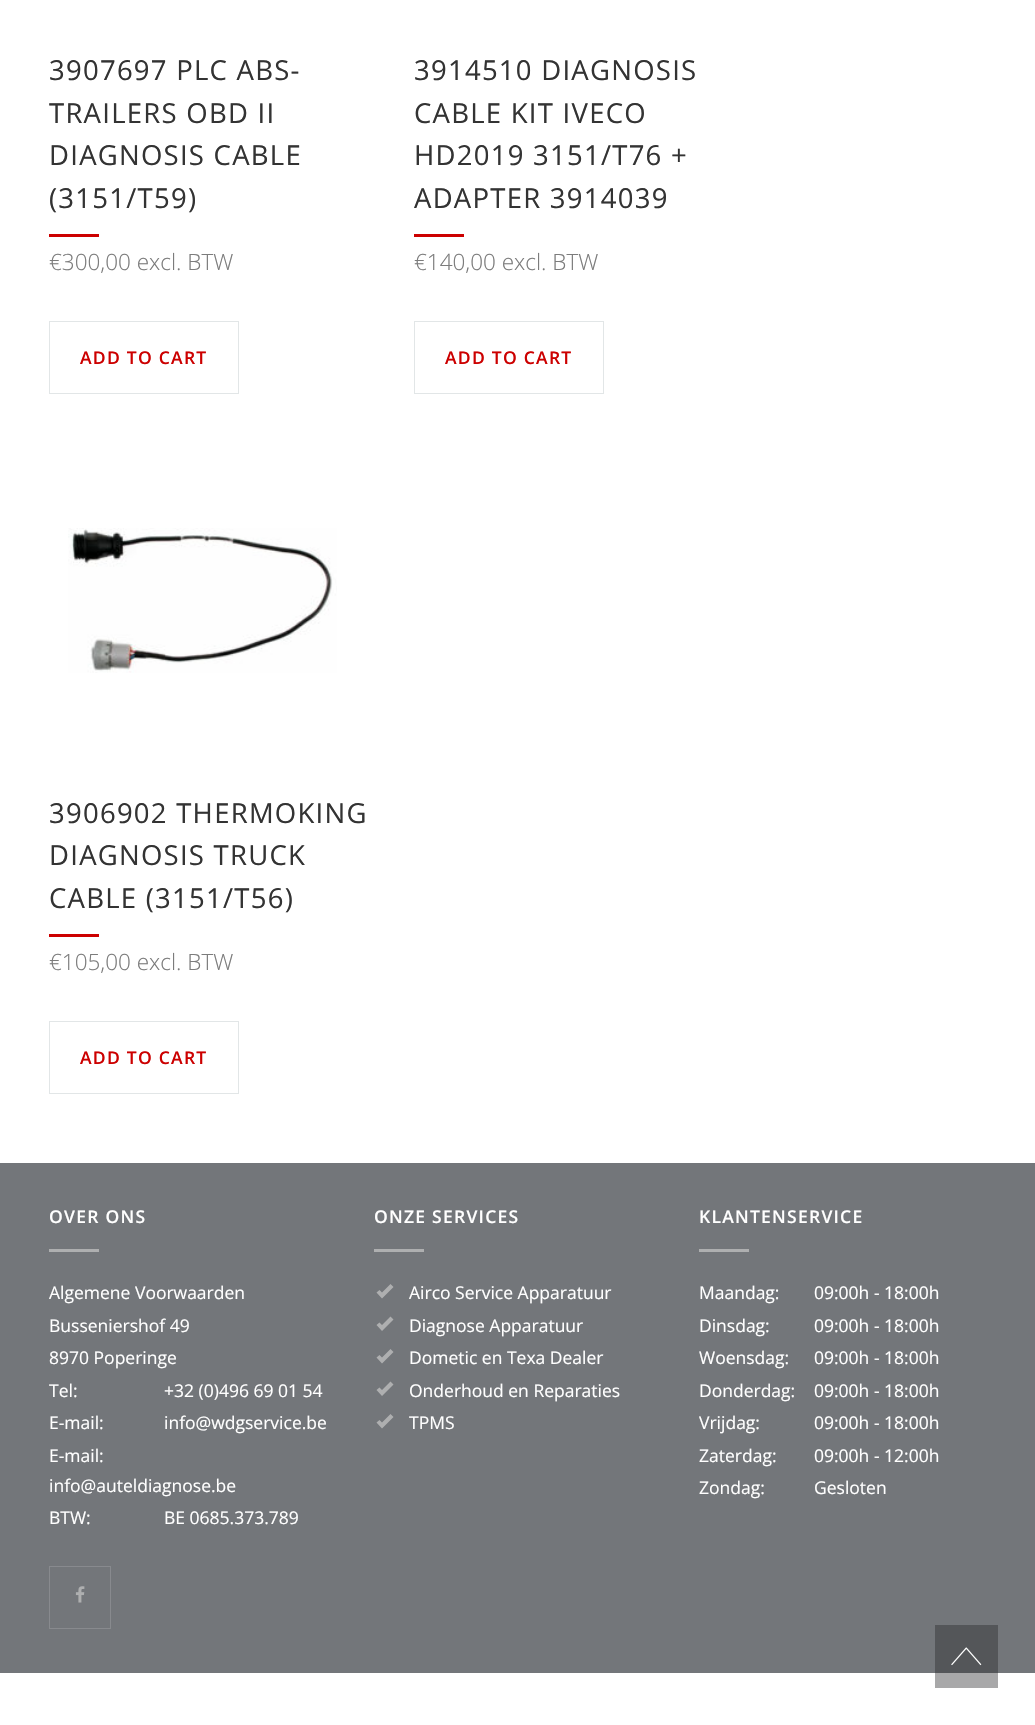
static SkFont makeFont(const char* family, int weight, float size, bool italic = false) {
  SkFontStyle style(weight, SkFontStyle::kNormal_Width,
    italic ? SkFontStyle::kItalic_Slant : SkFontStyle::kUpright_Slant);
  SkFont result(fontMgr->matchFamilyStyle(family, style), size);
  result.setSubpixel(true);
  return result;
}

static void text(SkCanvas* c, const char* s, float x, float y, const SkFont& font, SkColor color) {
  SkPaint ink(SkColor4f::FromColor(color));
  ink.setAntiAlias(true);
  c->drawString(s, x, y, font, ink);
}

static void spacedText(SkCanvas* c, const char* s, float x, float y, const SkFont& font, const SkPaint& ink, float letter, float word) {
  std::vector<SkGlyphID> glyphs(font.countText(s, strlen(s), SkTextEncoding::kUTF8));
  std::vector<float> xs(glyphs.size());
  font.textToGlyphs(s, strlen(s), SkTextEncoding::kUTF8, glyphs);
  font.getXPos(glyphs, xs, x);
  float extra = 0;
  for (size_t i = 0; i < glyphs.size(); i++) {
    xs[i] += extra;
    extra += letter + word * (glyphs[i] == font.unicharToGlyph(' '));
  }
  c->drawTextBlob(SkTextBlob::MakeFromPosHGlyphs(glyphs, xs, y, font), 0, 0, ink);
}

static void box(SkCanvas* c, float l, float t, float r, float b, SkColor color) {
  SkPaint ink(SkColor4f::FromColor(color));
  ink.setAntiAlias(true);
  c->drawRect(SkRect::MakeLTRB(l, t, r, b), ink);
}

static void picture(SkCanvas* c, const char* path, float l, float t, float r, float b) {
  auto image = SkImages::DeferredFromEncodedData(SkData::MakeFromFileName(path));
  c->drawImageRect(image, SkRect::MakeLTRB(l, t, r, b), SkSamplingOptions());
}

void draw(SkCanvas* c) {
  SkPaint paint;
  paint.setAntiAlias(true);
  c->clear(0xffffffff);
  box(c, 935, 1673, 998, 1688, 0xffa8a8a9);
  SkFont face1 = makeFont("Open Sans", 400, 27.5f);
  paint.setColor(0xff333333);
  spacedText(c, "3907697 PLC ABS-", 49, 80, face1, paint, 1.25f, 0);
  spacedText(c, "TRAILERS OBD II", 49, 123, face1, paint, 1.25f, 0);
  spacedText(c, "DIAGNOSIS CABLE", 49, 165, face1, paint, 1.25f, 0);
  spacedText(c, "(3151/T59)", 49, 208, face1, paint, 1.25f, 0);
  box(c, 49, 234, 99, 237, 0xffcc0000);
  SkFont face2 = makeFont("Open Sans", 300, 22.5f);
  text(c, "€300,00 excl. BTW", 49, 270, face2, 0xff7c7c7c);
  paint.setStyle(SkPaint::kStroke_Style);
  paint.setStrokeWidth(1);
  paint.setColor(0xffe2e6e7);
  c->drawRect(SkRect::MakeLTRB(49.5f, 321.5f, 238.5f, 393.5f), paint);
  SkFont face3 = makeFont("Open Sans", 600, 17.5f);
  paint.setStyle(SkPaint::kFill_Style);
  paint.setColor(0xffcc0000);
  spacedText(c, "ADD TO CART", 80, 364, face3, paint, 1.25f, 0);
  paint.setColor(0xff333333);
  spacedText(c, "3914510 DIAGNOSIS", 414, 80, face1, paint, 1.25f, 0);
  spacedText(c, "CABLE KIT IVECO", 414, 123, face1, paint, 1.25f, 0);
  spacedText(c, "HD2019 3151/T76 +", 414, 165, face1, paint, 1.25f, 0);
  spacedText(c, "ADAPTER 3914039", 414, 208, face1, paint, 1.25f, 0);
  box(c, 414, 234, 464, 237, 0xffcc0000);
  text(c, "€140,00 excl. BTW", 414, 270, face2, 0xff7c7c7c);
  paint.setStyle(SkPaint::kStroke_Style);
  paint.setColor(0xffe2e6e7);
  c->drawRect(SkRect::MakeLTRB(414.5f, 321.5f, 603.5f, 393.5f), paint);
  paint.setStyle(SkPaint::kFill_Style);
  paint.setColor(0xffcc0000);
  spacedText(c, "ADD TO CART", 445, 364, face3, paint, 1.25f, 0);
  picture(c, "img_01.png", 68, 528, 337, 673);
  paint.setColor(0xff333333);
  spacedText(c, "3906902 THERMOKING", 49, 823, face1, paint, 1.25f, 0);
  spacedText(c, "DIAGNOSIS TRUCK", 49, 865, face1, paint, 1.25f, 0);
  spacedText(c, "CABLE (3151/T56)", 49, 908, face1, paint, 1.25f, 0);
  box(c, 49, 934, 99, 937, 0xffcc0000);
  text(c, "€105,00 excl. BTW", 49, 970, face2, 0xff7c7c7c);
  paint.setStyle(SkPaint::kStroke_Style);
  paint.setColor(0xffe2e6e7);
  c->drawRect(SkRect::MakeLTRB(49.5f, 1021.5f, 238.5f, 1093.5f), paint);
  paint.setStyle(SkPaint::kFill_Style);
  paint.setColor(0xffcc0000);
  spacedText(c, "ADD TO CART", 80, 1064, face3, paint, 1.25f, 0);
  box(c, 0, 1163, 1035, 1673, 0xff73767a);
  box(c, 935, 1625, 998, 1673, 0xff545659);
  paint.setColor(0xffffffff);
  spacedText(c, "OVER ONS", 49, 1223, face3, paint, 1.25f, 0);
  box(c, 49, 1249, 99, 1252, 0xffaeafb0);
  SkFont face4 = makeFont("Open Sans", 400, 17.5f);
  text(c, "Algemene Voorwaarden", 49, 1299, face4, 0xffffffff);
  text(c, "Busseniershof 49", 49, 1332, face4, 0xffffffff);
  text(c, "8970 Poperinge", 49, 1364, face4, 0xffffffff);
  text(c, "Tel:", 49, 1397, face4, 0xffffffff);
  text(c, "+32 (0)496 69 01 54", 164, 1397, face4, 0xffffffff);
  text(c, "E-mail:", 49, 1429, face4, 0xffffffff);
  text(c, "info@wdgservice.be", 164, 1429, face4, 0xffffffff);
  text(c, "E-mail:", 49, 1462, face4, 0xffffffff);
  text(c, "info@auteldiagnose.be", 49, 1492, face4, 0xffffffff);
  text(c, "BTW:", 49, 1524, face4, 0xffffffff);
  text(c, "BE 0685.373.789", 164, 1524, face4, 0xffffffff);
  paint.setStyle(SkPaint::kStroke_Style);
  paint.setColor(0xff888a8e);
  c->drawRect(SkRect::MakeLTRB(49.5f, 1566.5f, 110.5f, 1628.5f), paint);
  picture(c, "img_02.png", 75, 1586, 85, 1603);
  paint.setStyle(SkPaint::kFill_Style);
  paint.setColor(0xffffffff);
  spacedText(c, "ONZE SERVICES", 374, 1223, face3, paint, 1.25f, 0);
  box(c, 374, 1249, 424, 1252, 0xffaeafb0);
  paint.setColor(0xffaeafb0);
  c->drawPath(SkPathBuilder().moveTo(390.5f, 1284).lineTo(393.5f, 1287).lineTo(382, 1298.5f).lineTo(376.5f, 1292.5f).lineTo(379.5f, 1290).lineTo(382, 1292.5f).close().detach(), paint);
  text(c, "Airco Service Apparatuur", 409, 1299, face4, 0xffffffff);
  c->drawPath(SkPathBuilder().moveTo(390.5f, 1316.5f).lineTo(393.5f, 1319.5f).lineTo(382, 1331).lineTo(376.5f, 1325).lineTo(379.5f, 1322.5f).lineTo(382, 1325).close().detach(), paint);
  text(c, "Diagnose Apparatuur", 409, 1332, face4, 0xffffffff);
  c->drawPath(SkPathBuilder().moveTo(390.5f, 1349).lineTo(393.5f, 1352).lineTo(382, 1363.5f).lineTo(376.5f, 1357.5f).lineTo(379.5f, 1355).lineTo(382, 1357.5f).close().detach(), paint);
  text(c, "Dometic en Texa Dealer", 409, 1364, face4, 0xffffffff);
  c->drawPath(SkPathBuilder().moveTo(390.5f, 1381.5f).lineTo(393.5f, 1384.5f).lineTo(382, 1396).lineTo(376.5f, 1390).lineTo(379.5f, 1387.5f).lineTo(382, 1390).close().detach(), paint);
  text(c, "Onderhoud en Reparaties", 409, 1397, face4, 0xffffffff);
  c->drawPath(SkPathBuilder().moveTo(390.5f, 1414).lineTo(393.5f, 1417).lineTo(382, 1428.5f).lineTo(376.5f, 1422.5f).lineTo(379.5f, 1420).lineTo(382, 1422.5f).close().detach(), paint);
  text(c, "TPMS", 409, 1429, face4, 0xffffffff);
  paint.setColor(0xffffffff);
  spacedText(c, "KLANTENSERVICE", 699, 1223, face3, paint, 1.25f, 0);
  box(c, 699, 1249, 749, 1252, 0xffaeafb0);
  text(c, "Maandag:", 699, 1299, face4, 0xffffffff);
  text(c, "09:00h - 18:00h", 814, 1299, face4, 0xffffffff);
  text(c, "Dinsdag:", 699, 1332, face4, 0xffffffff);
  text(c, "09:00h - 18:00h", 814, 1332, face4, 0xffffffff);
  text(c, "Woensdag:", 699, 1364, face4, 0xffffffff);
  text(c, "09:00h - 18:00h", 814, 1364, face4, 0xffffffff);
  text(c, "Donderdag:", 699, 1397, face4, 0xffffffff);
  text(c, "09:00h - 18:00h", 814, 1397, face4, 0xffffffff);
  text(c, "Vrijdag:", 699, 1429, face4, 0xffffffff);
  text(c, "09:00h - 18:00h", 814, 1429, face4, 0xffffffff);
  text(c, "Zaterdag:", 699, 1462, face4, 0xffffffff);
  text(c, "09:00h - 12:00h", 814, 1462, face4, 0xffffffff);
  text(c, "Zondag:", 699, 1494, face4, 0xffffffff);
  text(c, "Gesloten", 814, 1494, face4, 0xffffffff);
  picture(c, "img_03.png", 951, 1647, 982, 1666);
}
